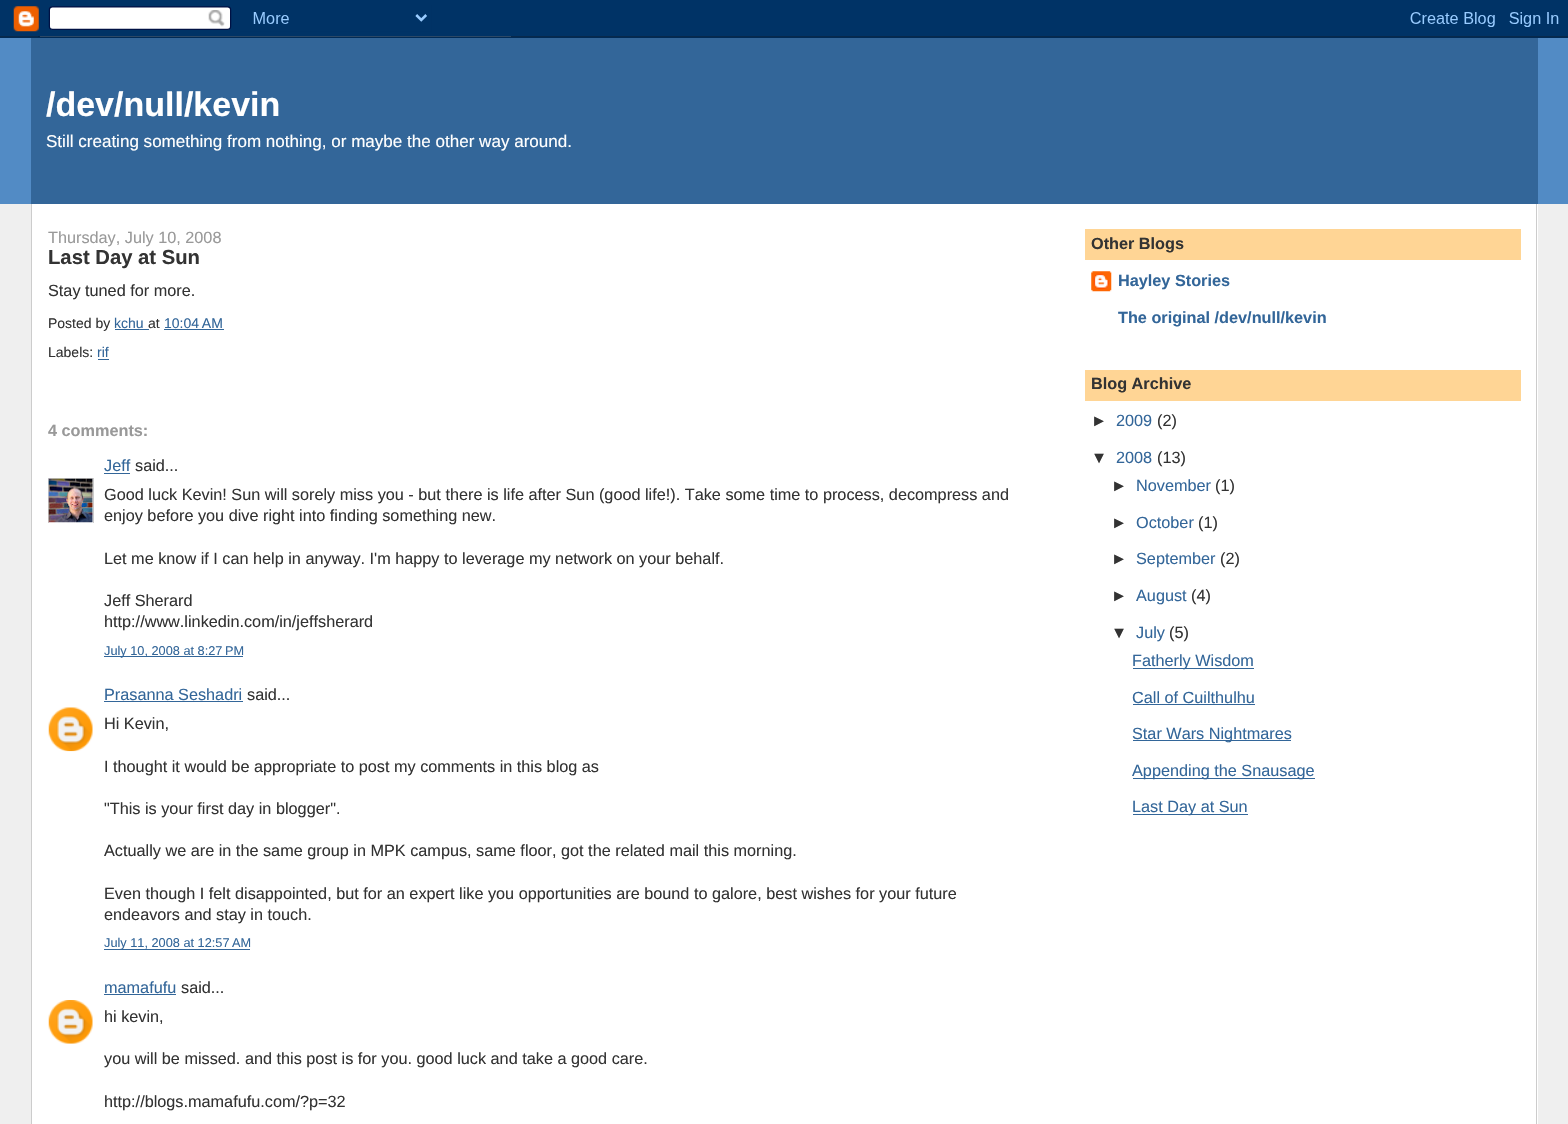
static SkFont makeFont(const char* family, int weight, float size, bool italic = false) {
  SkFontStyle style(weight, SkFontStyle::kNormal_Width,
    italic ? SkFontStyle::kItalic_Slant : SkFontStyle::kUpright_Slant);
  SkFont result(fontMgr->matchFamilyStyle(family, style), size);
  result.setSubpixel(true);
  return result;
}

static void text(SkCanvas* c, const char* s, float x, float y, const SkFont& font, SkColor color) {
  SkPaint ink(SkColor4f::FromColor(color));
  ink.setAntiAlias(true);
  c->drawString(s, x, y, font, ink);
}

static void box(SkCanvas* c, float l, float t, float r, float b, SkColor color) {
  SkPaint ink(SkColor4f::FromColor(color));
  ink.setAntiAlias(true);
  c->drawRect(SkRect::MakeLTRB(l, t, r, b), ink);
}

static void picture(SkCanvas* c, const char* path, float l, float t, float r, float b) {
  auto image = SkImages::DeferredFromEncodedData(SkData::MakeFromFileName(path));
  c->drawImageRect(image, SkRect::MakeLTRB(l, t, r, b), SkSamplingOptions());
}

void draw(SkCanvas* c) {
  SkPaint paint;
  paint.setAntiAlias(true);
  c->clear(0xffefefef);
  picture(c, "img_01.png", 0, 0, 1568, 38);
  box(c, 0, 38, 1568, 204, 0xff528bc5);
  box(c, 31, 38, 1538, 204, 0xff336699);
  SkFont face1 = makeFont("Liberation Sans", 700, 34);
  text(c, "/dev/null/kevin", 46, 116, face1, 0xffffffff);
  SkFont face2 = makeFont("Liberation Sans", 400, 17.05f);
  text(c, "Still creating something from nothing, or maybe the other way around.", 46, 147, face2, 0xffffffff);
  box(c, 32, 204, 1538, 1124, 0xffffffff);
  box(c, 1536, 204, 1537, 1124, 0xffcccccc);
  box(c, 31, 204, 32, 1124, 0xffcccccc);
  SkFont face3 = makeFont("Liberation Sans", 400, 16.25f);
  text(c, "Thursday, July 10, 2008", 48, 243, face3, 0xff999999);
  SkFont face4 = makeFont("Liberation Sans", 700, 20.25f);
  text(c, "Last Day at Sun", 48, 264, face4, 0xff333333);
  text(c, "Stay tuned for more.", 48, 296, face3, 0xff333333);
  SkFont face5 = makeFont("Liberation Sans", 400, 14);
  text(c, "Posted by", 48, 328, face5, 0xff333333);
  text(c, "kchu", 114, 328, face5, 0xff336699);
  box(c, 115, 329, 149, 330, 0xff336699);
  text(c, "at", 148, 328, face5, 0xff333333);
  paint.setStyle(SkPaint::kStroke_Style);
  paint.setStrokeWidth(1.2f);
  paint.setColor(0xff336699);
  paint.setPathEffect(SkDashPathEffect::Make({{1.25f, 1.25f}}, 0));
  c->drawPath(SkPathBuilder().moveTo(164, 329.5f).lineTo(223, 329.5f).detach(), paint);
  paint.setPathEffect(nullptr);
  text(c, "10:04 AM", 164, 328, face5, 0xff336699);
  box(c, 164, 329, 224, 330, 0xff336699);
  text(c, "Labels:", 48, 357, face5, 0xff333333);
  text(c, "rif", 97, 357, face5, 0xff336699);
  box(c, 98, 359, 109, 360, 0xff336699);
  SkFont face6 = makeFont("Liberation Sans", 700, 16.25f);
  text(c, "4 comments:", 48, 436, face6, 0xff999999);
  text(c, "Jeff", 104, 471, face3, 0xff336699);
  box(c, 104, 473, 130, 474, 0xff336699);
  text(c, "said...", 135, 471, face3, 0xff333333);
  c->save();
  c->clipRect(SkRect::MakeLTRB(48, 478, 94, 523));
  paint.setStrokeWidth(1);
  paint.setColor(0xffcccccc);
  c->drawRect(SkRect::MakeLTRB(48.5f, 478.5f, 93.5f, 523.5f), paint);
  c->restore();
  picture(c, "img_02.png", 48, 478, 93, 523);
  text(c, "Good luck Kevin! Sun will sorely miss you - but there is life after Sun (good life!). Take some time to process, decompress and", 104, 500, face3, 0xff333333);
  text(c, "enjoy before you dive right into finding something new.", 104, 521, face3, 0xff333333);
  text(c, "Let me know if I can help in anyway. I'm happy to leverage my network on your behalf.", 104, 564, face3, 0xff333333);
  text(c, "Jeff Sherard", 104, 606, face3, 0xff333333);
  text(c, "http://www.linkedin.com/in/jeffsherard", 104, 627, face3, 0xff333333);
  box(c, 104, 656, 243, 657, 0xff336699);
  SkFont face7 = makeFont("Liberation Sans", 400, 12.75f);
  text(c, "July 10, 2008 at 8:27 PM", 104, 655, face7, 0xff336699);
  text(c, "Prasanna Seshadri", 104, 700, face3, 0xff336699);
  box(c, 104, 701, 243, 702, 0xff336699);
  text(c, "said...", 247, 700, face3, 0xff333333);
  picture(c, "img_03.png", 48, 707, 93, 752);
  text(c, "Hi Kevin,", 104, 729, face3, 0xff333333);
  text(c, "I thought it would be appropriate to post my comments in this blog as", 104, 772, face3, 0xff333333);
  text(c, "\"This is your first day in blogger\".", 104, 814, face3, 0xff333333);
  text(c, "Actually we are in the same group in MPK campus, same floor, got the related mail this morning.", 104, 856, face3, 0xff333333);
  text(c, "Even though I felt disappointed, but for an expert like you opportunities are bound to galore, best wishes for your future", 104, 899, face3, 0xff333333);
  text(c, "endeavors and stay in touch.", 104, 920, face3, 0xff333333);
  box(c, 104, 949, 250, 950, 0xff336699);
  text(c, "July 11, 2008 at 12:57 AM", 104, 947, face7, 0xff336699);
  text(c, "mamafufu", 104, 993, face3, 0xff336699);
  box(c, 104, 994, 176, 995, 0xff336699);
  text(c, "said...", 181, 993, face3, 0xff333333);
  picture(c, "img_04.png", 48, 1000, 93, 1044);
  text(c, "hi kevin,", 104, 1022, face3, 0xff333333);
  text(c, "you will be missed. and this post is for you. good luck and take a good care.", 104, 1064, face3, 0xff333333);
  text(c, "http://blogs.mamafufu.com/?p=32", 104, 1107, face3, 0xff333333);
  box(c, 1085, 229, 1521, 260, 0xffffd595);
  text(c, "Other Blogs", 1091, 249, face6, 0xff333333);
  picture(c, "img_05.png", 1091, 271, 1112, 292);
  text(c, "Hayley Stories", 1118, 286, face6, 0xff336699);
  text(c, "The original /dev/null/kevin", 1118, 323, face6, 0xff336699);
  box(c, 1085, 370, 1521, 401, 0xffffd595);
  text(c, "Blog Archive", 1091, 389, face6, 0xff333333);
  text(c, "►", 1091, 426, face3, 0xff333333);
  text(c, "2009", 1116, 426, face3, 0xff336699);
  text(c, "(2)", 1157, 426, face3, 0xff333333);
  text(c, "▼", 1091, 463, face3, 0xff333333);
  text(c, "2008", 1116, 463, face3, 0xff336699);
  text(c, "(13)", 1157, 463, face3, 0xff333333);
  text(c, "►", 1111, 491, face3, 0xff333333);
  text(c, "November", 1136, 491, face3, 0xff336699);
  text(c, "(1)", 1215, 491, face3, 0xff333333);
  text(c, "►", 1111, 528, face3, 0xff333333);
  text(c, "October", 1136, 528, face3, 0xff336699);
  text(c, "(1)", 1198, 528, face3, 0xff333333);
  text(c, "►", 1111, 564, face3, 0xff333333);
  text(c, "September", 1136, 564, face3, 0xff336699);
  text(c, "(2)", 1220, 564, face3, 0xff333333);
  text(c, "►", 1111, 601, face3, 0xff333333);
  text(c, "August", 1136, 601, face3, 0xff336699);
  text(c, "(4)", 1191, 601, face3, 0xff333333);
  text(c, "▼", 1111, 638, face3, 0xff333333);
  text(c, "July", 1136, 638, face3, 0xff336699);
  text(c, "(5)", 1169, 638, face3, 0xff333333);
  box(c, 1133, 668, 1254, 669, 0xff336699);
  text(c, "Fatherly Wisdom", 1132, 666, face3, 0xff336699);
  text(c, "Call of Cuilthulhu", 1132, 703, face3, 0xff336699);
  box(c, 1133, 704, 1255, 705, 0xff336699);
  box(c, 1133, 740, 1291, 741, 0xff336699);
  text(c, "Star Wars Nightmares", 1132, 739, face3, 0xff336699);
  box(c, 1133, 778, 1315, 779, 0xff336699);
  text(c, "Appending the Snausage", 1132, 776, face3, 0xff336699);
  box(c, 1133, 814, 1248, 815, 0xff336699);
  text(c, "Last Day at Sun", 1132, 812, face3, 0xff336699);
}
